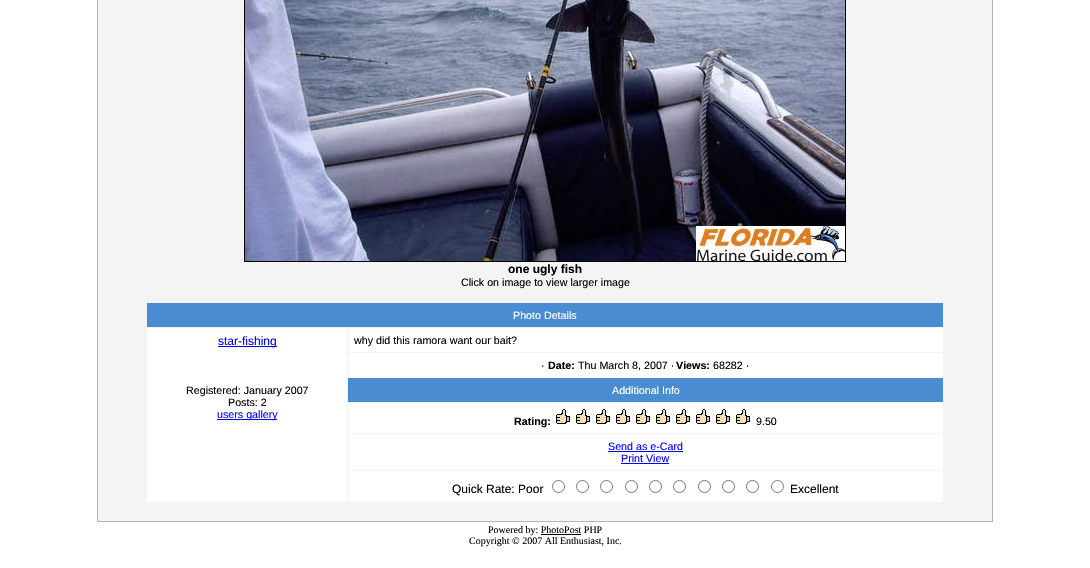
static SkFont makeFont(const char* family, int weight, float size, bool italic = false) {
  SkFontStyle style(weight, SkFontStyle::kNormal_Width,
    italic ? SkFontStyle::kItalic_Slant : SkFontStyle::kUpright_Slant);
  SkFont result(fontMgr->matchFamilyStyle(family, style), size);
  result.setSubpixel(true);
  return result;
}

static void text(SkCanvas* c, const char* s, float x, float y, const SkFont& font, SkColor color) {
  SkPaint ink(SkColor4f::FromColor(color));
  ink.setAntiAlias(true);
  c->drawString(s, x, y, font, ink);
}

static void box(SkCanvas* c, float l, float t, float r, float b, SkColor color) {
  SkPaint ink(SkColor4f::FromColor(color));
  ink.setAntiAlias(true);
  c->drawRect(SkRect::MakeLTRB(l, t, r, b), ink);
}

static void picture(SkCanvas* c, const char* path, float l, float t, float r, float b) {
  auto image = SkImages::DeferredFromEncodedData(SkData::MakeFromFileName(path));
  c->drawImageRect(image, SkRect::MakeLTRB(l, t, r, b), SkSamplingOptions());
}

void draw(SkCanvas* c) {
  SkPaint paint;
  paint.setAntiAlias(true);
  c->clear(0xffffffff);
  box(c, 97, 0, 993, 522, 0xffb4b4b4);
  box(c, 98, 0, 992, 521, 0xfff4f4f4);
  box(c, 244, 0, 846, 262, 0xff000000);
  picture(c, "img_01.png", 245, 0, 845, 261);
  SkFont face1 = makeFont("Liberation Sans", 700, 12);
  text(c, "one ugly fish", 508, 273, face1, 0xff000000);
  SkFont face2 = makeFont("Liberation Sans", 400, 10.7f);
  text(c, "Click on image to view larger image", 461, 286, face2, 0xff000000);
  box(c, 147, 303, 943, 327, 0xff498cd1);
  text(c, "Photo Details", 513, 319, face2, 0xffffffff);
  box(c, 147, 328, 347, 502, 0xffffffff);
  box(c, 218, 346, 277, 347, 0xff0000ff);
  SkFont face3 = makeFont("Liberation Sans", 400, 12);
  text(c, "star-fishing", 218, 345, face3, 0xff0000ff);
  text(c, "Registered: January 2007", 186, 394, face2, 0xff000000);
  text(c, "Posts: 2", 228, 406, face2, 0xff000000);
  box(c, 217, 419, 277, 420, 0xff0000ff);
  text(c, "users gallery", 217, 418, face2, 0xff0000ff);
  box(c, 348, 328, 943, 352, 0xffffffff);
  text(c, "why did this ramora want our bait?", 354, 344, face2, 0xff000000);
  box(c, 348, 353, 943, 377, 0xffffffff);
  text(c, "·", 541, 369, face2, 0xff000000);
  SkFont face4 = makeFont("Liberation Sans", 700, 10.7f);
  text(c, "Date:", 548, 369, face4, 0xff000000);
  text(c, "Thu March 8, 2007 ·", 578, 369, face2, 0xff000000);
  text(c, "Views:", 676, 369, face4, 0xff000000);
  text(c, "68282 ·", 713, 369, face2, 0xff000000);
  box(c, 348, 378, 943, 402, 0xff498cd1);
  text(c, "Additional Info", 612, 394, face2, 0xffffffff);
  box(c, 348, 403, 943, 433, 0xffffffff);
  text(c, "Rating:", 514, 425, face4, 0xff000000);
  picture(c, "img_02.png", 556, 409, 570, 424);
  picture(c, "img_02.png", 576, 409, 590, 424);
  picture(c, "img_02.png", 596, 409, 610, 424);
  picture(c, "img_02.png", 616, 409, 630, 424);
  picture(c, "img_02.png", 636, 409, 650, 424);
  picture(c, "img_02.png", 656, 409, 670, 424);
  picture(c, "img_02.png", 676, 409, 690, 424);
  picture(c, "img_02.png", 696, 409, 710, 424);
  picture(c, "img_02.png", 716, 409, 730, 424);
  picture(c, "img_02.png", 736, 409, 750, 424);
  text(c, "9.50", 756, 425, face2, 0xff000000);
  box(c, 348, 434, 943, 470, 0xffffffff);
  text(c, "Send as e-Card", 608, 450, face2, 0xff0000ff);
  box(c, 608, 451, 683, 452, 0xff0000ff);
  text(c, "Print View", 621, 462, face2, 0xff0000ff);
  box(c, 621, 463, 669, 464, 0xff0000ff);
  box(c, 348, 471, 943, 502, 0xffffffff);
  text(c, "Quick Rate: Poor", 452, 493, face3, 0xff000000);
  paint.setStyle(SkPaint::kStroke_Style);
  paint.setStrokeWidth(1);
  paint.setColor(0xff767676);
  c->drawCircle(558.5f, 486.5f, 6, paint);
  c->drawCircle(582.5f, 486.5f, 6, paint);
  c->drawCircle(606.5f, 486.5f, 6, paint);
  c->drawCircle(631.5f, 486.5f, 6, paint);
  c->drawCircle(655.5f, 486.5f, 6, paint);
  c->drawCircle(679.5f, 486.5f, 6, paint);
  c->drawCircle(704.5f, 486.5f, 6, paint);
  c->drawCircle(728.5f, 486.5f, 6, paint);
  c->drawCircle(752.5f, 486.5f, 6, paint);
  c->drawCircle(777.5f, 486.5f, 6, paint);
  text(c, "Excellent", 790, 493, face3, 0xff000000);
  SkFont face5 = makeFont("Liberation Serif", 400, 10);
  text(c, "Powered by: PhotoPost PHP", 488, 533, face5, 0xff000000);
  box(c, 541, 534, 581, 535, 0xff000000);
  text(c, "Copyright © 2007 All Enthusiast, Inc.", 469, 544, face5, 0xff000000);
}
